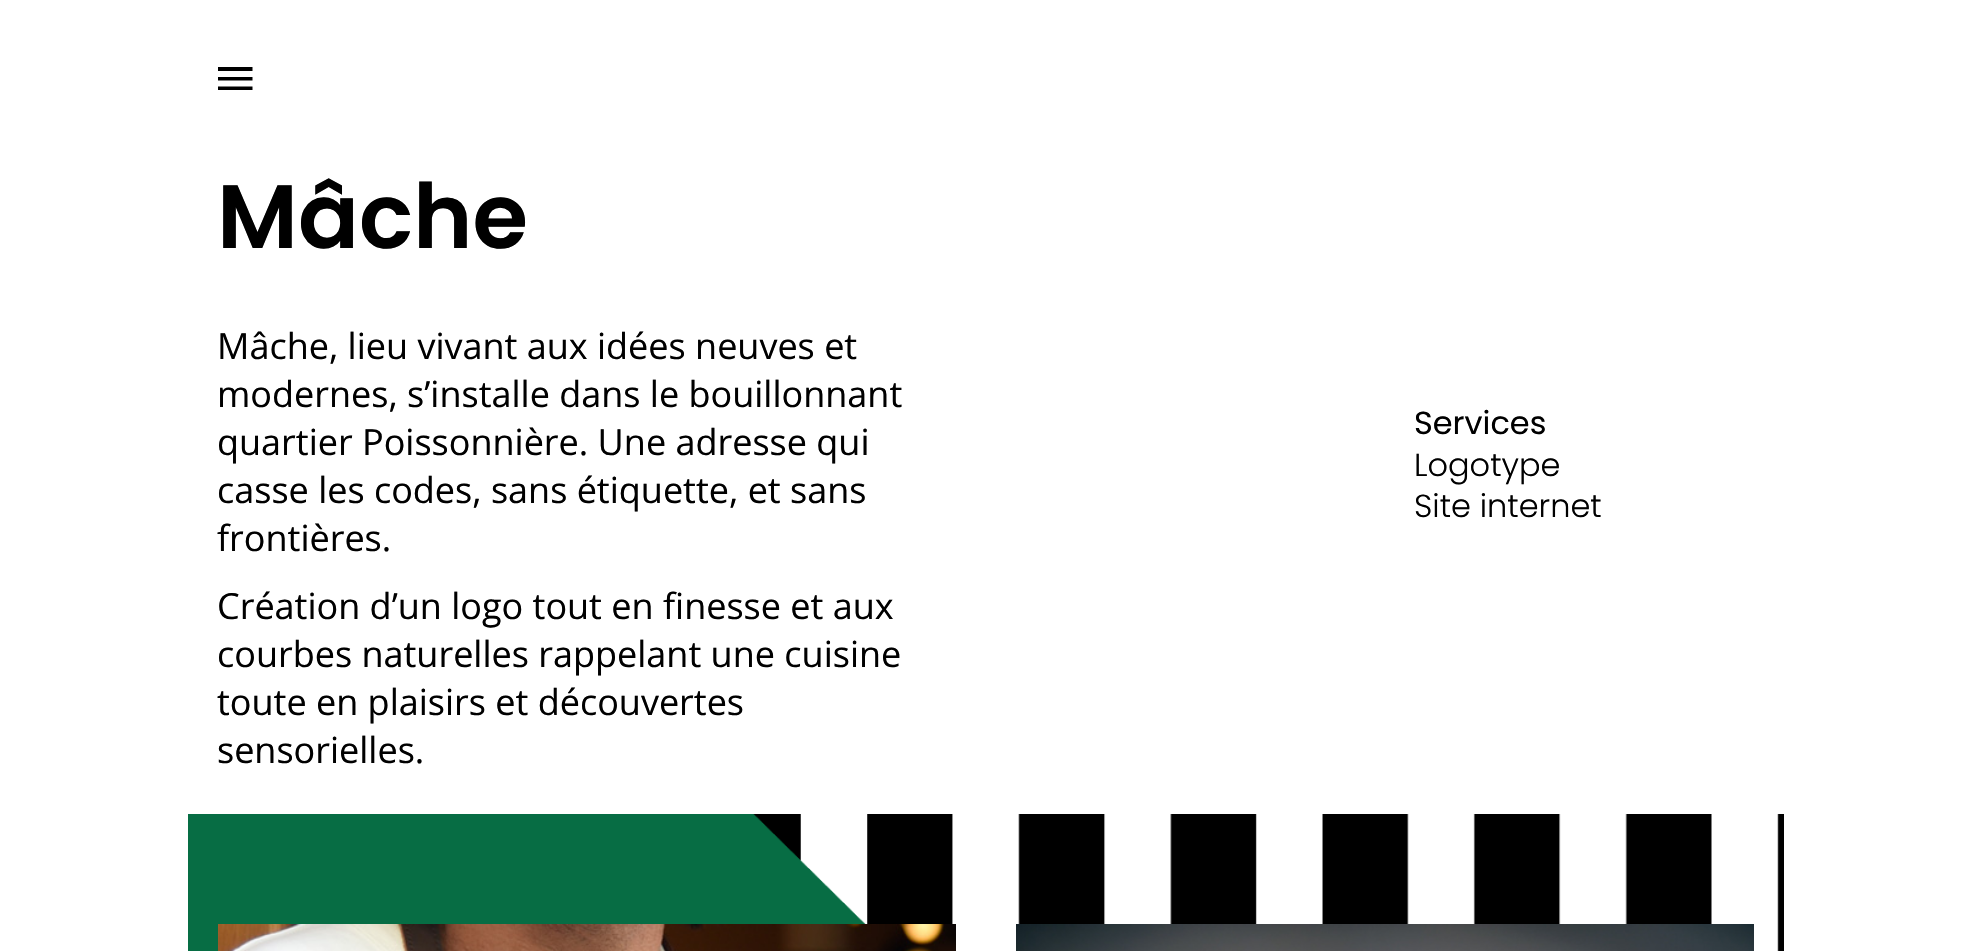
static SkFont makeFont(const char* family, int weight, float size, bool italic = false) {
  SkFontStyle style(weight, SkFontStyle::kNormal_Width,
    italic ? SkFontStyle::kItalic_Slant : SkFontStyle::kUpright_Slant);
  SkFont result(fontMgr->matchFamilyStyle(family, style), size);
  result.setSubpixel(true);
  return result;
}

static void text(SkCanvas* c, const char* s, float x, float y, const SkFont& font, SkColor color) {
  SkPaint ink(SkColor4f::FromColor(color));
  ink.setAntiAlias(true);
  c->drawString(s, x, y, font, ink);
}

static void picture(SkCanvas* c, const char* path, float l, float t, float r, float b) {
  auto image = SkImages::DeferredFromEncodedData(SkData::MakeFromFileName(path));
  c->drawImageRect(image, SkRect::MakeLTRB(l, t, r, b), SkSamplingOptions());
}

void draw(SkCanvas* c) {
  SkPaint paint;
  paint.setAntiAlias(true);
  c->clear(0xffffffff);
  paint.setColor(0xff000000);
  c->drawPath(SkPathBuilder().moveTo(218, 90).lineTo(218, 86.5f).lineTo(252.5f, 86.5f).lineTo(252.5f, 90).close().moveTo(218, 80.5f).lineTo(218, 77).lineTo(252.5f, 77).lineTo(252.5f, 80.5f).close().moveTo(218, 67).lineTo(252.5f, 67).lineTo(252.5f, 71).lineTo(218, 71).close().detach(), paint);
  SkFont face1 = makeFont("Poppins", 600, 90);
  text(c, "Mâche", 217, 248, face1, 0xff000000);
  SkFont face2 = makeFont("Open Sans", 400, 36);
  text(c, "Mâche, lieu vivant aux idées neuves et", 217, 359, face2, 0xff000000);
  text(c, "modernes, s’installe dans le bouillonnant", 217, 407, face2, 0xff000000);
  text(c, "quartier Poissonnière. Une adresse qui", 217, 455, face2, 0xff000000);
  text(c, "casse les codes, sans étiquette, et sans", 217, 503, face2, 0xff000000);
  text(c, "frontières.", 217, 551, face2, 0xff000000);
  text(c, "Création d’un logo tout en finesse et aux", 217, 619, face2, 0xff000000);
  text(c, "courbes naturelles rappelant une cuisine", 217, 667, face2, 0xff000000);
  text(c, "toute en plaisirs et découvertes", 217, 715, face2, 0xff000000);
  text(c, "sensorielles.", 217, 763, face2, 0xff000000);
  SkFont face3 = makeFont("Poppins", 400, 32);
  text(c, "Services", 1414, 434, face3, 0xff000000);
  SkFont face4 = makeFont("Poppins", 300, 32);
  text(c, "Logotype", 1414, 476, face4, 0xff000000);
  text(c, "Site internet", 1414, 517, face4, 0xff000000);
  picture(c, "img_01.png", 188, 814, 1784, 951);
  picture(c, "img_02.png", 218, 924, 956, 951);
  picture(c, "img_03.png", 1016, 924, 1754, 951);
}
